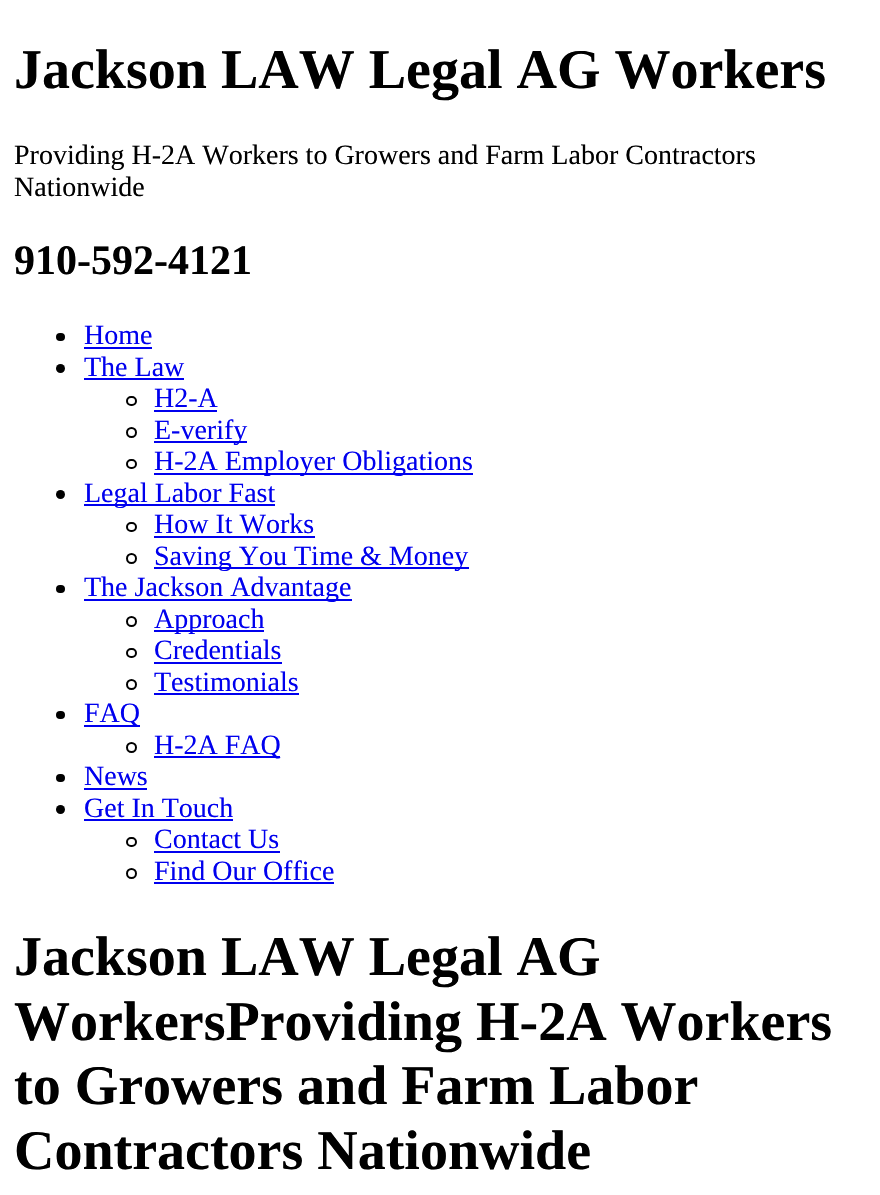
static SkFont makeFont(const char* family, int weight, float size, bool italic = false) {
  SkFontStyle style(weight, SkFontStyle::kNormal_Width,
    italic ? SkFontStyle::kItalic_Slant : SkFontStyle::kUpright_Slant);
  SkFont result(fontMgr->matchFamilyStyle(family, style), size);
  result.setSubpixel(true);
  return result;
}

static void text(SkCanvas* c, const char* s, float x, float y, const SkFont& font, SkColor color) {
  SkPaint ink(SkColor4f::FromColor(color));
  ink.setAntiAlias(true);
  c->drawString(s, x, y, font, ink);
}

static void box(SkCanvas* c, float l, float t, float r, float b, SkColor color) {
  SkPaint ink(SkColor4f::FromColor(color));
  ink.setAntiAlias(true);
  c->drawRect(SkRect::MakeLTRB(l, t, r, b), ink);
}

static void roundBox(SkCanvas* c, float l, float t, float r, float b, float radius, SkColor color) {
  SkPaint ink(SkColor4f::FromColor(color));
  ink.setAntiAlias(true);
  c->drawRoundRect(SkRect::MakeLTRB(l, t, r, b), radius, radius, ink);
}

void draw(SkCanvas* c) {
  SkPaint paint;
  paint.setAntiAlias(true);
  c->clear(0xffffffff);
  SkFont face1 = makeFont("Liberation Serif", 700, 56);
  text(c, "Jackson LAW Legal AG Workers", 14, 88, face1, 0xff000000);
  SkFont face2 = makeFont("Liberation Serif", 400, 28);
  text(c, "Providing H-2A Workers to Growers and Farm Labor Contractors", 14, 164, face2, 0xff000000);
  text(c, "Nationwide", 14, 196, face2, 0xff000000);
  SkFont face3 = makeFont("Liberation Serif", 700, 42);
  text(c, "910-592-4121", 14, 274, face3, 0xff000000);
  roundBox(c, 56, 333, 65, 341, 4, 0xff000000);
  text(c, "Home", 84, 344, face2, 0xff0000ee);
  box(c, 84, 347, 152, 349, 0xff0000ee);
  paint.setColor(0xff000000);
  c->drawCircle(60.5f, 368.5f, 4.5f, paint);
  text(c, "The Law", 84, 376, face2, 0xff0000ee);
  box(c, 84, 378, 184, 380, 0xff0000ee);
  paint.setStyle(SkPaint::kStroke_Style);
  paint.setStrokeWidth(2);
  c->drawRoundRect(SkRect::MakeLTRB(127, 397, 136, 405), 4, 4, paint);
  text(c, "H2-A", 154, 407, face2, 0xff0000ee);
  box(c, 154, 410, 217, 412, 0xff0000ee);
  c->drawCircle(131.5f, 432.5f, 4.5f, paint);
  box(c, 154, 441, 247, 443, 0xff0000ee);
  text(c, "E-verify", 154, 439, face2, 0xff0000ee);
  c->drawRoundRect(SkRect::MakeLTRB(127, 460, 136, 468), 4, 4, paint);
  box(c, 154, 473, 473, 475, 0xff0000ee);
  text(c, "H-2A Employer Obligations", 154, 470, face2, 0xff0000ee);
  paint.setStyle(SkPaint::kFill_Style);
  c->drawCircle(60.5f, 494.5f, 4.5f, paint);
  box(c, 84, 504, 275, 506, 0xff0000ee);
  text(c, "Legal Labor Fast", 84, 502, face2, 0xff0000ee);
  paint.setStyle(SkPaint::kStroke_Style);
  c->drawRoundRect(SkRect::MakeLTRB(127, 523, 136, 531), 4, 4, paint);
  text(c, "How It Works", 154, 533, face2, 0xff0000ee);
  box(c, 154, 536, 315, 538, 0xff0000ee);
  c->drawCircle(131.5f, 558.5f, 4.5f, paint);
  box(c, 154, 567, 469, 569, 0xff0000ee);
  text(c, "Saving You Time & Money", 154, 565, face2, 0xff0000ee);
  roundBox(c, 56, 585, 65, 593, 4, 0xff000000);
  box(c, 84, 599, 352, 601, 0xff0000ee);
  text(c, "The Jackson Advantage", 84, 596, face2, 0xff0000ee);
  c->drawCircle(131.5f, 621.5f, 4.5f, paint);
  box(c, 154, 630, 264, 632, 0xff0000ee);
  text(c, "Approach", 154, 628, face2, 0xff0000ee);
  c->drawRoundRect(SkRect::MakeLTRB(127, 649, 136, 657), 4, 4, paint);
  text(c, "Credentials", 154, 659, face2, 0xff0000ee);
  box(c, 154, 662, 282, 664, 0xff0000ee);
  c->drawCircle(131.5f, 684.5f, 4.5f, paint);
  text(c, "Testimonials", 154, 691, face2, 0xff0000ee);
  box(c, 154, 693, 299, 695, 0xff0000ee);
  roundBox(c, 56, 711, 65, 719, 4, 0xff000000);
  box(c, 84, 725, 140, 727, 0xff0000ee);
  text(c, "FAQ", 84, 722, face2, 0xff0000ee);
  c->drawCircle(131.5f, 747.5f, 4.5f, paint);
  box(c, 154, 756, 280, 758, 0xff0000ee);
  text(c, "H-2A FAQ", 154, 754, face2, 0xff0000ee);
  roundBox(c, 56, 774, 65, 782, 4, 0xff000000);
  text(c, "News", 84, 785, face2, 0xff0000ee);
  box(c, 84, 788, 147, 790, 0xff0000ee);
  paint.setStyle(SkPaint::kFill_Style);
  c->drawCircle(60.5f, 809.5f, 4.5f, paint);
  text(c, "Get In Touch", 84, 817, face2, 0xff0000ee);
  box(c, 84, 819, 233, 821, 0xff0000ee);
  paint.setStyle(SkPaint::kStroke_Style);
  c->drawRoundRect(SkRect::MakeLTRB(127, 838, 136, 846), 4, 4, paint);
  text(c, "Contact Us", 154, 848, face2, 0xff0000ee);
  box(c, 154, 851, 280, 853, 0xff0000ee);
  c->drawCircle(131.5f, 873.5f, 4.5f, paint);
  text(c, "Find Our Office", 154, 880, face2, 0xff0000ee);
  box(c, 154, 882, 334, 884, 0xff0000ee);
  text(c, "Jackson LAW Legal AG", 14, 975, face1, 0xff000000);
  text(c, "WorkersProviding H-2A Workers", 14, 1040, face1, 0xff000000);
  text(c, "to Growers and Farm Labor", 14, 1104, face1, 0xff000000);
  text(c, "Contractors Nationwide", 14, 1169, face1, 0xff000000);
}
